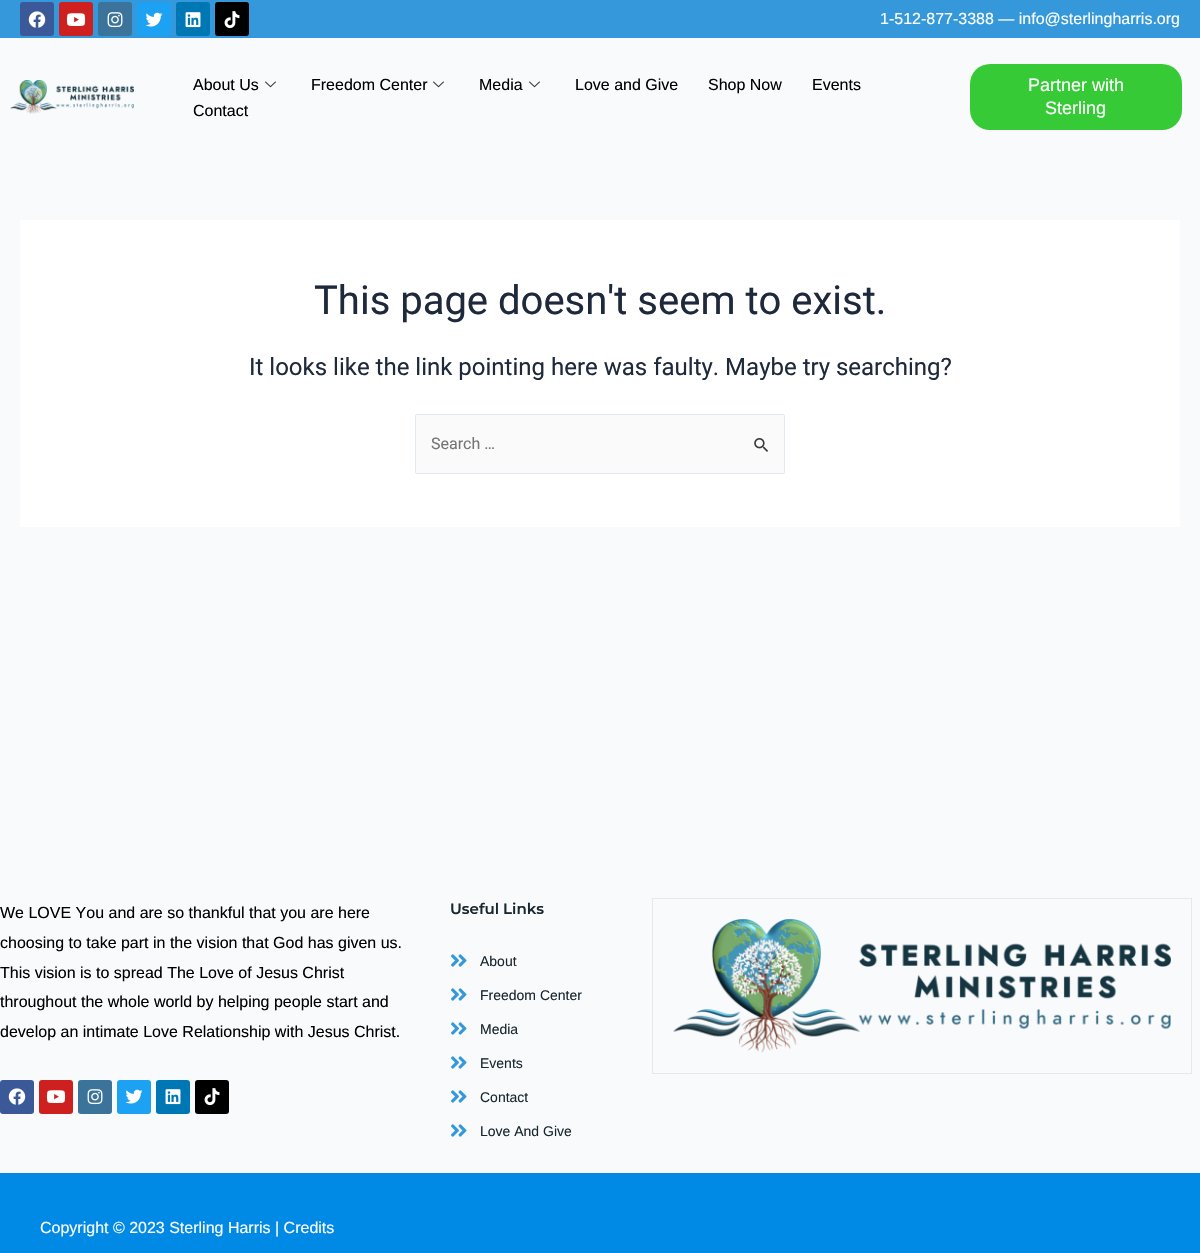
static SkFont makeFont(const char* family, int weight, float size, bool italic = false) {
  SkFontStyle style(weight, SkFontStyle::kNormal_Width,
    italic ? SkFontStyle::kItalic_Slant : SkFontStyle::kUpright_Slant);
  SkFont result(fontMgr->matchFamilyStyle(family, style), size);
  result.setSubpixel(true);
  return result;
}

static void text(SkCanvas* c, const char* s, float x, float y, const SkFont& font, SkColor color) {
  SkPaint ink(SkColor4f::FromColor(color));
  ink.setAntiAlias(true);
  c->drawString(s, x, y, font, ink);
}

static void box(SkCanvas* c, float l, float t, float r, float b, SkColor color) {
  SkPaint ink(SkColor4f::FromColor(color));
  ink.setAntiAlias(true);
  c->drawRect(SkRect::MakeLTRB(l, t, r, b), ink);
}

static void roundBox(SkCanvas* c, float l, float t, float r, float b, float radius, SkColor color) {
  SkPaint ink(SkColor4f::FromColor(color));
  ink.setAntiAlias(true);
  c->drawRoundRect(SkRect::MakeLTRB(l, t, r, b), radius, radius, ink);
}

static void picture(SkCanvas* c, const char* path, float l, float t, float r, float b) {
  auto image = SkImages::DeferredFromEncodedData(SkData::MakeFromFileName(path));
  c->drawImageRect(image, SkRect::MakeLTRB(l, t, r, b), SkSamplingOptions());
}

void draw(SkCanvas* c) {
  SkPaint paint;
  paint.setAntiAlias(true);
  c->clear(0xfff9fafb);
  box(c, 0, 0, 1200, 38, 0xff3498da);
  roundBox(c, 20, 2, 54, 36, 3, 0xff3b5998);
  picture(c, "img_01.png", 28, 11, 46, 28);
  roundBox(c, 59, 2, 93, 36, 3, 0xffcd201f);
  picture(c, "img_02.png", 66, 13, 86, 26);
  roundBox(c, 98, 2, 132, 36, 3, 0xff3c739b);
  picture(c, "img_03.png", 107, 12, 123, 28);
  roundBox(c, 137, 2, 171, 36, 3, 0xff1da1f2);
  picture(c, "img_04.png", 145, 12, 163, 27);
  roundBox(c, 176, 2, 210, 36, 3, 0xff0077b5);
  picture(c, "img_05.png", 185, 12, 201, 28);
  roundBox(c, 215, 2, 249, 36, 3, 0xff000000);
  picture(c, "img_06.png", 224, 11, 240, 29);
  SkFont face1 = makeFont("Liberation Sans", 400, 16);
  text(c, "1-512-877-3388 — info@sterlingharris.org", 880, 24, face1, 0xffffffff);
  picture(c, "img_07.png", 10, 80, 134, 114);
  text(c, "About Us", 193, 90, face1, 0xff000000);
  picture(c, "img_08.png", 265, 81, 276, 88);
  text(c, "Freedom Center", 311, 90, face1, 0xff000000);
  picture(c, "img_08.png", 433, 81, 444, 88);
  text(c, "Media", 479, 90, face1, 0xff000000);
  picture(c, "img_08.png", 529, 81, 540, 88);
  text(c, "Love and Give", 575, 90, face1, 0xff000000);
  text(c, "Shop Now", 708, 90, face1, 0xff000000);
  text(c, "Events", 812, 90, face1, 0xff000000);
  text(c, "Contact", 193, 116, face1, 0xff000000);
  roundBox(c, 970, 64, 1182, 130, 20, 0xff37ca37);
  SkFont face2 = makeFont("Liberation Sans", 400, 18);
  text(c, "Partner with", 1028, 91, face2, 0xffffffff);
  text(c, "Sterling", 1045, 114, face2, 0xffffffff);
  box(c, 20, 220, 1180, 527, 0xffffffff);
  SkFont face3 = makeFont("Roboto", 400, 40);
  text(c, "This page doesn't seem to exist.", 314, 314, face3, 0xff1e293b);
  SkFont face4 = makeFont("Roboto", 400, 24);
  text(c, "It looks like the link pointing here was faulty. Maybe try searching?", 249, 375, face4, 0xff1e293b);
  paint.setColor(0xfffafafa);
  c->drawRoundRect(SkRect::MakeLTRB(415.5f, 414.5f, 784.5f, 473.5f), 1.5f, 1.5f, paint);
  paint.setStyle(SkPaint::kStroke_Style);
  paint.setStrokeWidth(1);
  paint.setColor(0xffe2e8f0);
  c->drawRoundRect(SkRect::MakeLTRB(415.5f, 414.5f, 784.5f, 473.5f), 1.5f, 1.5f, paint);
  SkFont face5 = makeFont("Roboto", 400, 16);
  text(c, "Search …", 431, 449, face5, 0xff757575);
  picture(c, "img_09.png", 754, 438, 768, 452);
  text(c, "We LOVE You and are so thankful that you are here", 0, 918, face1, 0xff000000);
  text(c, "choosing to take part in the vision that God has given us.", 0, 948, face1, 0xff000000);
  text(c, "This vision is to spread The Love of Jesus Christ", 0, 978, face1, 0xff000000);
  text(c, "throughout the whole world by helping people start and", 0, 1007, face1, 0xff000000);
  text(c, "develop an intimate Love Relationship with Jesus Christ.", 0, 1037, face1, 0xff000000);
  roundBox(c, 0, 1080, 34, 1114, 3, 0xff3b5998);
  picture(c, "img_01.png", 8, 1088, 26, 1105);
  roundBox(c, 39, 1080, 73, 1114, 3, 0xffcd201f);
  picture(c, "img_02.png", 46, 1090, 66, 1103);
  roundBox(c, 78, 1080, 112, 1114, 3, 0xff3c739b);
  picture(c, "img_03.png", 87, 1089, 103, 1105);
  roundBox(c, 117, 1080, 151, 1114, 3, 0xff1da1f2);
  picture(c, "img_04.png", 125, 1089, 143, 1104);
  roundBox(c, 156, 1080, 190, 1114, 3, 0xff0077b5);
  picture(c, "img_05.png", 165, 1089, 181, 1105);
  roundBox(c, 195, 1080, 229, 1114, 3, 0xff000000);
  picture(c, "img_06.png", 204, 1088, 220, 1106);
  SkFont face6 = makeFont("Montserrat", 600, 15);
  text(c, "Useful Links", 450, 914, face6, 0xff192730);
  picture(c, "img_10.png", 451, 954, 467, 967);
  SkFont face7 = makeFont("Liberation Sans", 400, 14);
  text(c, "About", 480, 966, face7, 0xff192730);
  picture(c, "img_10.png", 451, 988, 467, 1001);
  text(c, "Freedom Center", 480, 1000, face7, 0xff192730);
  picture(c, "img_10.png", 451, 1022, 467, 1035);
  text(c, "Media", 480, 1034, face7, 0xff192730);
  picture(c, "img_10.png", 451, 1056, 467, 1069);
  text(c, "Events", 480, 1068, face7, 0xff192730);
  picture(c, "img_10.png", 451, 1090, 467, 1103);
  text(c, "Contact", 480, 1102, face7, 0xff192730);
  picture(c, "img_10.png", 451, 1124, 467, 1137);
  text(c, "Love And Give", 480, 1136, face7, 0xff192730);
  paint.setColor(0xffe8e8e8);
  c->drawRect(SkRect::MakeLTRB(652.5f, 898.5f, 1191.5f, 1073.5f), paint);
  picture(c, "img_11.png", 673, 919, 1171, 1053);
  box(c, 0, 1173, 1200, 1253, 0xff0089e5);
  text(c, "Copyright © 2023 Sterling Harris | Credits", 40, 1233, face1, 0xffffffff);
}
